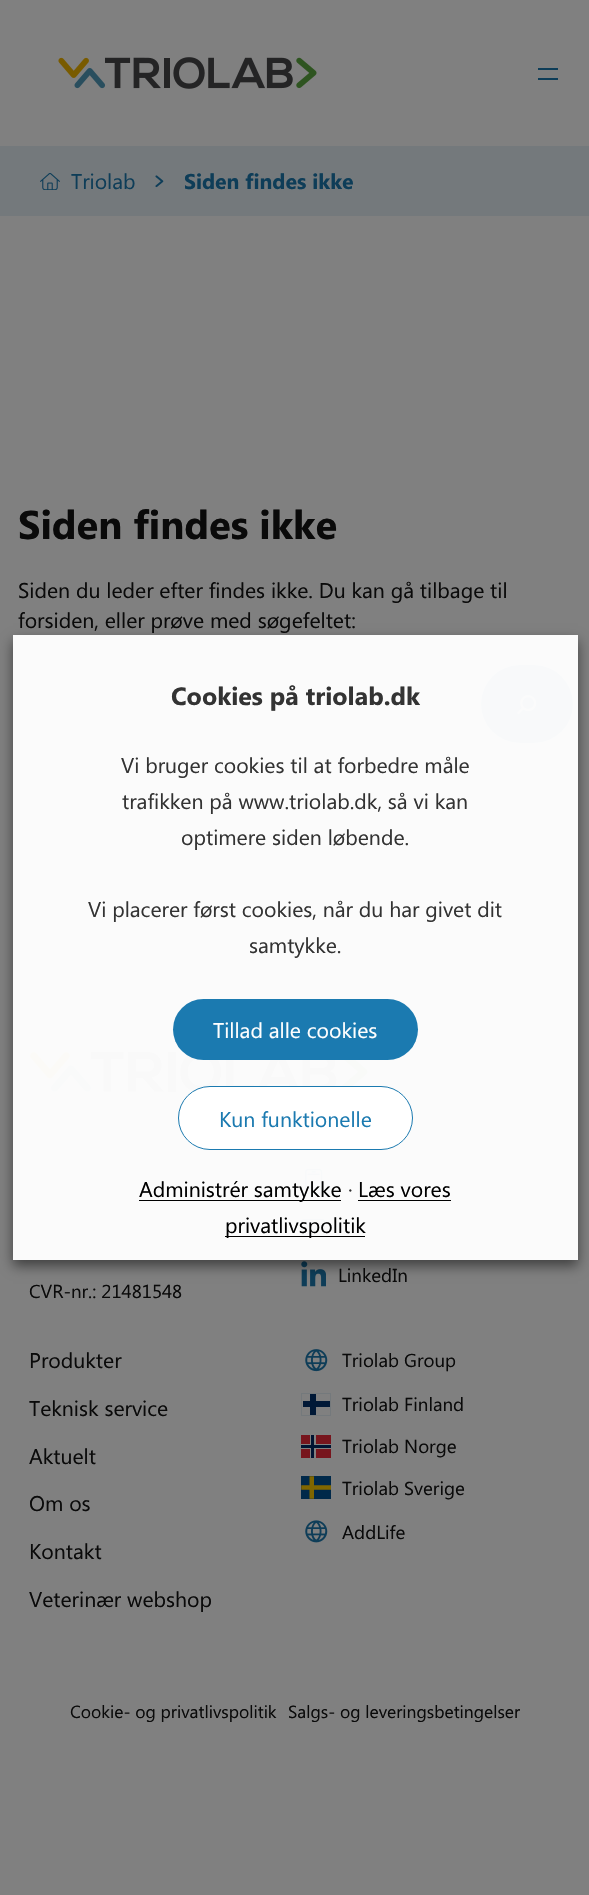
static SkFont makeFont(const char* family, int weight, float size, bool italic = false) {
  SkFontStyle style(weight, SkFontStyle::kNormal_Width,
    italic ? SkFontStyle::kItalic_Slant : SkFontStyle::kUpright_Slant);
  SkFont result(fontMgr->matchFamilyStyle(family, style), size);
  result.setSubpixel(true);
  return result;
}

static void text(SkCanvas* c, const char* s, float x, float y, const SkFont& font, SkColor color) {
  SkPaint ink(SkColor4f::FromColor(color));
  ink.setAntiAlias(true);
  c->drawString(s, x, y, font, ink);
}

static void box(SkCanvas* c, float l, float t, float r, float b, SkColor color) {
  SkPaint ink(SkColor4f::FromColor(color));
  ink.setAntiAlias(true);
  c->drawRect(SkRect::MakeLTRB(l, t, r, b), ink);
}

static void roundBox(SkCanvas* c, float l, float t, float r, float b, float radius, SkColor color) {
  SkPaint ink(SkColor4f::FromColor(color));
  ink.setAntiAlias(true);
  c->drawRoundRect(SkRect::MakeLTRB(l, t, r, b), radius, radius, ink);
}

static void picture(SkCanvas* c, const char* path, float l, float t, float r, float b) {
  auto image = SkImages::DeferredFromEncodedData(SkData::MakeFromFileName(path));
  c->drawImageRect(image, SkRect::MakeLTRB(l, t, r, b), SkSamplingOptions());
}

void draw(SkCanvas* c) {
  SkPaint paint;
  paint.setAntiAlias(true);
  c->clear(0xff808080);
  picture(c, "img_01.png", 58, 57, 317, 89);
  box(c, 538, 68, 558, 70, 0xff0e3d58);
  box(c, 538, 78, 558, 80, 0xff0e3d58);
  box(c, 0, 146, 589, 216, 0xff74797c);
  picture(c, "img_02.png", 40, 173, 60, 190);
  SkFont face1 = makeFont("Segoe UI", 400, 21.25f);
  text(c, "Triolab", 71, 189, face1, 0xff0e3d58);
  picture(c, "img_03.png", 155, 175, 164, 188);
  SkFont face2 = makeFont("Segoe UI", 700, 21.25f);
  text(c, "Siden findes ikke", 184, 189, face2, 0xff0e3d58);
  SkFont face3 = makeFont("Segoe UI", 700, 40);
  text(c, "Siden findes ikke", 18, 539, face3, 0xff0a0a0a);
  text(c, "Siden du leder efter findes ikke. Du kan gå tilbage til", 18, 598, face1, 0xff0a0a0a);
  text(c, "forsiden, eller prøve med søgefeltet:", 18, 628, face1, 0xff0a0a0a);
  paint.setStyle(SkPaint::kStroke_Style);
  paint.setStrokeWidth(3);
  paint.setColor(0xff787878);
  c->drawRect(SkRect::MakeLTRB(19.5f, 666.5f, 467.5f, 741.5f), paint);
  roundBox(c, 481, 665, 573, 743, 39, 0xff0e3d58);
  picture(c, "img_04.png", 517, 695, 537, 715);
  picture(c, "img_05.png", 30, 1051, 368, 1092);
  picture(c, "img_06.png", 305, 1169, 323, 1194);
  picture(c, "img_07.png", 301, 1219, 326, 1236);
  picture(c, "img_08.png", 301, 1261, 326, 1287);
  SkFont face4 = makeFont("Segoe UI", 400, 18.75f);
  text(c, "LinkedIn", 338, 1282, face4, 0xff0a0a0a);
  text(c, "CVR-nr.: 21481548", 29, 1298, face4, 0xff0a0a0a);
  text(c, "Produkter", 29, 1368, face1, 0xff0a0a0a);
  text(c, "Teknisk service", 29, 1416, face1, 0xff0a0a0a);
  text(c, "Aktuelt", 29, 1464, face1, 0xff0a0a0a);
  text(c, "Om os", 29, 1511, face1, 0xff0a0a0a);
  text(c, "Kontakt", 29, 1559, face1, 0xff0a0a0a);
  text(c, "Veterinær webshop", 29, 1607, face1, 0xff0a0a0a);
  picture(c, "img_09.png", 305, 1349, 328, 1372);
  text(c, "Triolab Group", 342, 1367, face4, 0xff0a0a0a);
  paint.setStrokeWidth(1);
  paint.setColor(0xff74797c);
  c->drawRect(SkRect::MakeLTRB(301.5f, 1393.5f, 330.5f, 1415.5f), paint);
  box(c, 303, 1401, 330, 1407, 0xff001836);
  box(c, 310, 1394, 316, 1415, 0xff001836);
  text(c, "Triolab Finland", 342, 1411, face4, 0xff0a0a0a);
  box(c, 301, 1435, 331, 1458, 0xff77151d);
  box(c, 310, 1435, 316, 1458, 0xff808080);
  box(c, 301, 1444, 331, 1449, 0xff808080);
  box(c, 311, 1435, 314, 1458, 0xff001332);
  box(c, 301, 1445, 331, 1448, 0xff001332);
  text(c, "Triolab Norge", 342, 1453, face4, 0xff0a0a0a);
  picture(c, "img_10.png", 301, 1476, 331, 1499);
  text(c, "Triolab Sverige", 342, 1495, face4, 0xff0a0a0a);
  picture(c, "img_11.png", 305, 1520, 328, 1543);
  text(c, "AddLife", 342, 1539, face4, 0xff0a0a0a);
  SkFont face5 = makeFont("Segoe UI", 400, 17.5f);
  text(c, "Cookie- og privatlivspolitik", 70, 1718, face5, 0xff0a0a0a);
  text(c, "Salgs- og leveringsbetingelser", 288, 1718, face5, 0xff0a0a0a);
  c->save();
  c->clipPath(SkPathBuilder(SkPathFillType::kEvenOdd).moveTo(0, 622).lineTo(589, 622).lineTo(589, 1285).lineTo(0, 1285).close().moveTo(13, 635).lineTo(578, 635).lineTo(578, 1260).lineTo(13, 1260).close().detach(), true);
  paint.setStyle(SkPaint::kFill_Style);
  paint.setColor(0x80000000);
  paint.setMaskFilter(SkMaskFilter::MakeBlur(kNormal_SkBlurStyle, 6));
  c->drawRect(SkRect::MakeLTRB(13, 641, 578, 1266), paint);
  paint.setMaskFilter(nullptr);
  c->restore();
  box(c, 13, 635, 578, 1260, 0xf7ffffff);
  SkFont face6 = makeFont("Segoe UI", 700, 25);
  text(c, "Cookies på triolab.dk", 171, 705, face6, 0xff333333);
  text(c, "Vi bruger cookies til at forbedre måle", 121, 773, face1, 0xff333333);
  text(c, "trafikken på www.triolab.dk, så vi kan", 122, 809, face1, 0xff333333);
  text(c, "optimere siden løbende.", 181, 845, face1, 0xff333333);
  text(c, "Vi placerer først cookies, når du har givet dit", 88, 917, face1, 0xff333333);
  text(c, "samtykke.", 249, 953, face1, 0xff333333);
  roundBox(c, 173, 999, 418, 1060, 30.5f, 0xff1b7ab0);
  text(c, "Tillad alle cookies", 213, 1038, face1, 0xffffffff);
  paint.setColor(0xffffffff);
  c->drawRoundRect(SkRect::MakeLTRB(178.5f, 1086.5f, 412.5f, 1149.5f), 31.5f, 31.5f, paint);
  paint.setStyle(SkPaint::kStroke_Style);
  paint.setColor(0xff1b7ab0);
  c->drawRoundRect(SkRect::MakeLTRB(178.5f, 1086.5f, 412.5f, 1149.5f), 31.5f, 31.5f, paint);
  text(c, "Kun funktionelle", 219, 1127, face1, 0xff1b7ab0);
  box(c, 139, 1200, 341, 1201, 0xff000000);
  text(c, "Administrér samtykke", 139, 1197, face1, 0xff000000);
  text(c, "·", 348, 1197, face1, 0xff333333);
  text(c, "Læs vores", 358, 1197, face1, 0xff000000);
  box(c, 358, 1200, 451, 1201, 0xff000000);
  box(c, 225, 1236, 365, 1237, 0xff000000);
  text(c, "privatlivspolitik", 225, 1233, face1, 0xff000000);
}
